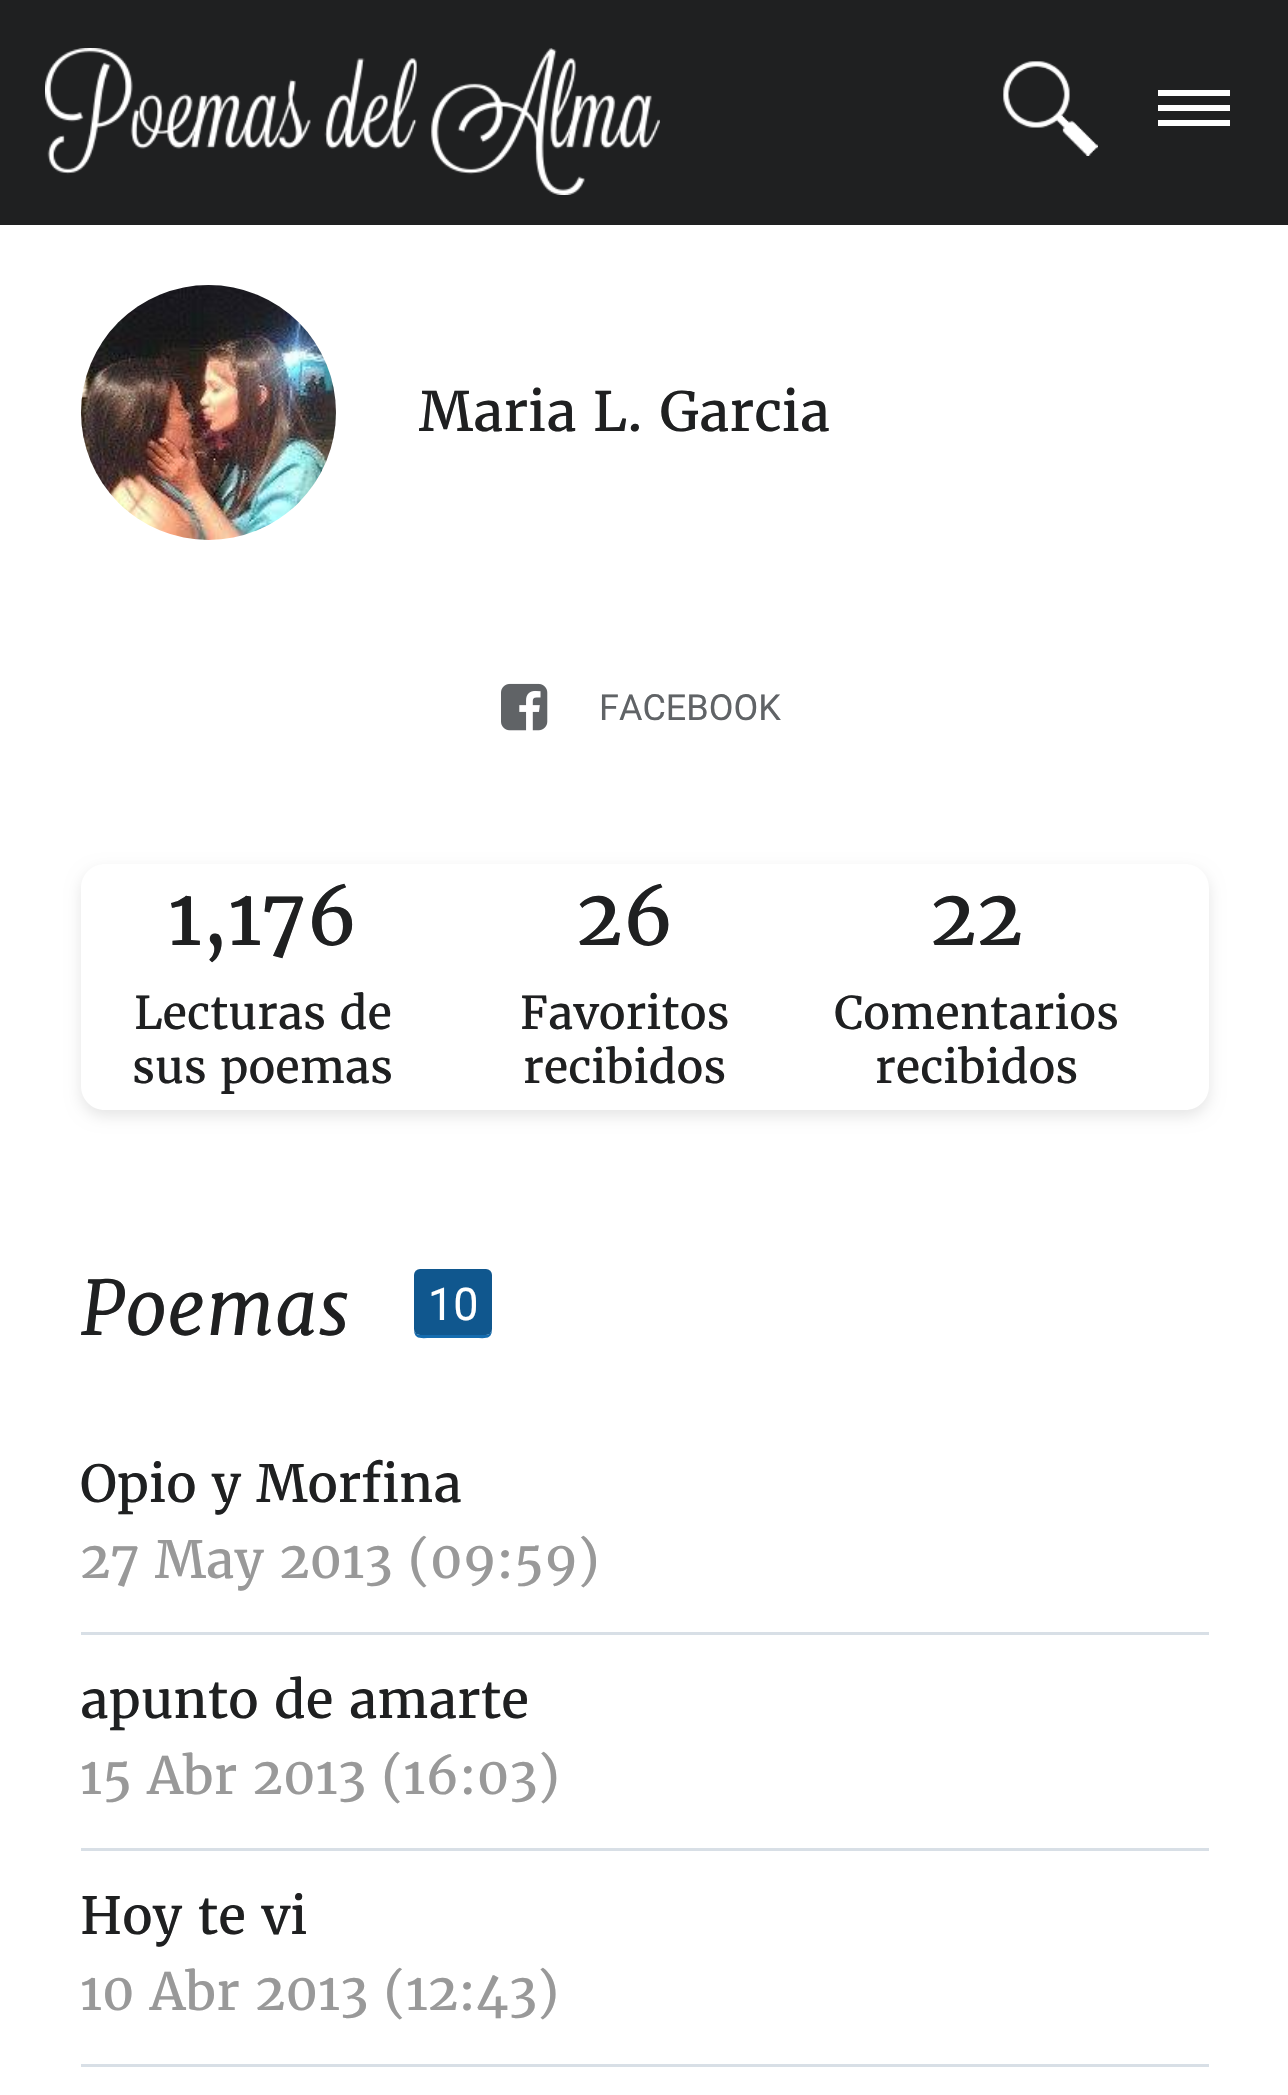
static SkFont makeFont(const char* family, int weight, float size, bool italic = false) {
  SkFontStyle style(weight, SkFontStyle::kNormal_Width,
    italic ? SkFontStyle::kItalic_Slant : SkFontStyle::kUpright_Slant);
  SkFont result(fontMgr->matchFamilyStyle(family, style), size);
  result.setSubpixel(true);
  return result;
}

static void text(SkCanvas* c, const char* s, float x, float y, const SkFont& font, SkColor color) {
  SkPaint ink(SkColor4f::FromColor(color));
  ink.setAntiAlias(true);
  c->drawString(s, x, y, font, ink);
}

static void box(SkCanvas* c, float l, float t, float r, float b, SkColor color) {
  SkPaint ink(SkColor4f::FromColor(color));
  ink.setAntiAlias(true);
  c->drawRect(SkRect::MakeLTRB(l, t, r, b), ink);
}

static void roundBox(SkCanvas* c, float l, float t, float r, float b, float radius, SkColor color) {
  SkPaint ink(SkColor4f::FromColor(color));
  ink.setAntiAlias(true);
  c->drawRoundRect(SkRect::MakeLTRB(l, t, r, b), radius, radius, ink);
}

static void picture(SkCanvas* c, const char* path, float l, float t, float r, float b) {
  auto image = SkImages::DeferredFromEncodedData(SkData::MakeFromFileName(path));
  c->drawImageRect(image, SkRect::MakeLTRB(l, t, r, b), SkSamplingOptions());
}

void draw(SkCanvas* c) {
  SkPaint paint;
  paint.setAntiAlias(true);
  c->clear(0xff1f2021);
  picture(c, "img_01.png", 45, 48, 660, 195);
  picture(c, "img_02.png", 1003, 61, 1098, 156);
  box(c, 1158, 105, 1230, 111, 0xffffffff);
  box(c, 1158, 90, 1230, 96, 0xffffffff);
  box(c, 1158, 120, 1230, 126, 0xffffffff);
  box(c, 0, 225, 1288, 2095, 0xffffffff);
  picture(c, "img_03.png", 80, 285, 336, 540);
  SkFont face1 = makeFont("Merriweather", 400, 54);
  text(c, "Maria L. Garcia", 419, 431, face1, 0xff1f2021);
  picture(c, "img_04.png", 501, 683, 548, 731);
  SkFont face2 = makeFont("Roboto", 400, 36);
  text(c, "FACEBOOK", 599, 720, face2, 0xff606366);
  c->save();
  c->clipPath(SkPathBuilder(SkPathFillType::kEvenOdd).moveTo(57, 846).lineTo(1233, 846).lineTo(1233, 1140).lineTo(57, 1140).close().moveTo(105, 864).lineTo(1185, 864).cubicTo(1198.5f, 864, 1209, 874.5f, 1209, 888).lineTo(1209, 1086).cubicTo(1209, 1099.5f, 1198.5f, 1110, 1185, 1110).lineTo(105, 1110).cubicTo(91.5f, 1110, 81, 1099.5f, 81, 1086).lineTo(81, 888).cubicTo(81, 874.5f, 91.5f, 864, 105, 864).close().detach(), true);
  paint.setColor(0x1a000000);
  paint.setMaskFilter(SkMaskFilter::MakeBlur(kNormal_SkBlurStyle, 7.5f));
  c->drawRoundRect(SkRect::MakeLTRB(81, 870, 1209, 1116), 24, 24, paint);
  paint.setMaskFilter(nullptr);
  c->restore();
  SkFont face3 = makeFont("Merriweather", 400, 78);
  text(c, "1,176", 168, 945, face3, 0xff1f2021);
  SkFont face4 = makeFont("Merriweather", 400, 45);
  text(c, "Lecturas de", 134, 1029, face4, 0xff1f2021);
  text(c, "sus poemas", 132, 1083, face4, 0xff1f2021);
  text(c, "26", 576, 945, face3, 0xff1f2021);
  text(c, "Favoritos", 520, 1029, face4, 0xff1f2021);
  text(c, "recibidos", 523, 1083, face4, 0xff1f2021);
  text(c, "22", 930, 945, face3, 0xff1f2021);
  text(c, "Comentarios", 834, 1029, face4, 0xff1f2021);
  text(c, "recibidos", 875, 1083, face4, 0xff1f2021);
  SkFont face5 = makeFont("Merriweather", 400, 75, true);
  text(c, "Poemas", 80, 1335, face5, 0xff1f2021);
  paint.setColor(0xff156caf);
  c->drawPath(SkPathBuilder().moveTo(414, 1329).cubicTo(414, 1340, 421, 1338, 431, 1338).lineTo(475, 1338).cubicTo(485, 1338, 492, 1340, 492, 1329).cubicTo(492, 1332, 489, 1335, 486, 1335).lineTo(420, 1335).cubicTo(417, 1335, 414, 1332, 414, 1329).close().detach(), paint);
  roundBox(c, 414, 1269, 492, 1335, 6, 0xff10578e);
  SkFont face6 = makeFont("Roboto", 400, 45);
  text(c, "10", 428, 1320, face6, 0xffffffff);
  box(c, 81, 1632, 1209, 1635, 0xffd8dfe6);
  SkFont face7 = makeFont("Merriweather", 400, 51);
  text(c, "Opio y Morfina", 80, 1502, face7, 0xff1f2021);
  text(c, "27 May 2013 (09:59)", 80, 1578, face7, 0xff999999);
  box(c, 81, 1848, 1209, 1851, 0xffd8dfe6);
  text(c, "apunto de amarte", 80, 1718, face7, 0xff1f2021);
  text(c, "15 Abr 2013 (16:03)", 80, 1794, face7, 0xff999999);
  box(c, 81, 2064, 1209, 2067, 0xffd8dfe6);
  text(c, "Hoy te vi", 80, 1934, face7, 0xff1f2021);
  text(c, "10 Abr 2013 (12:43)", 80, 2010, face7, 0xff999999);
}
